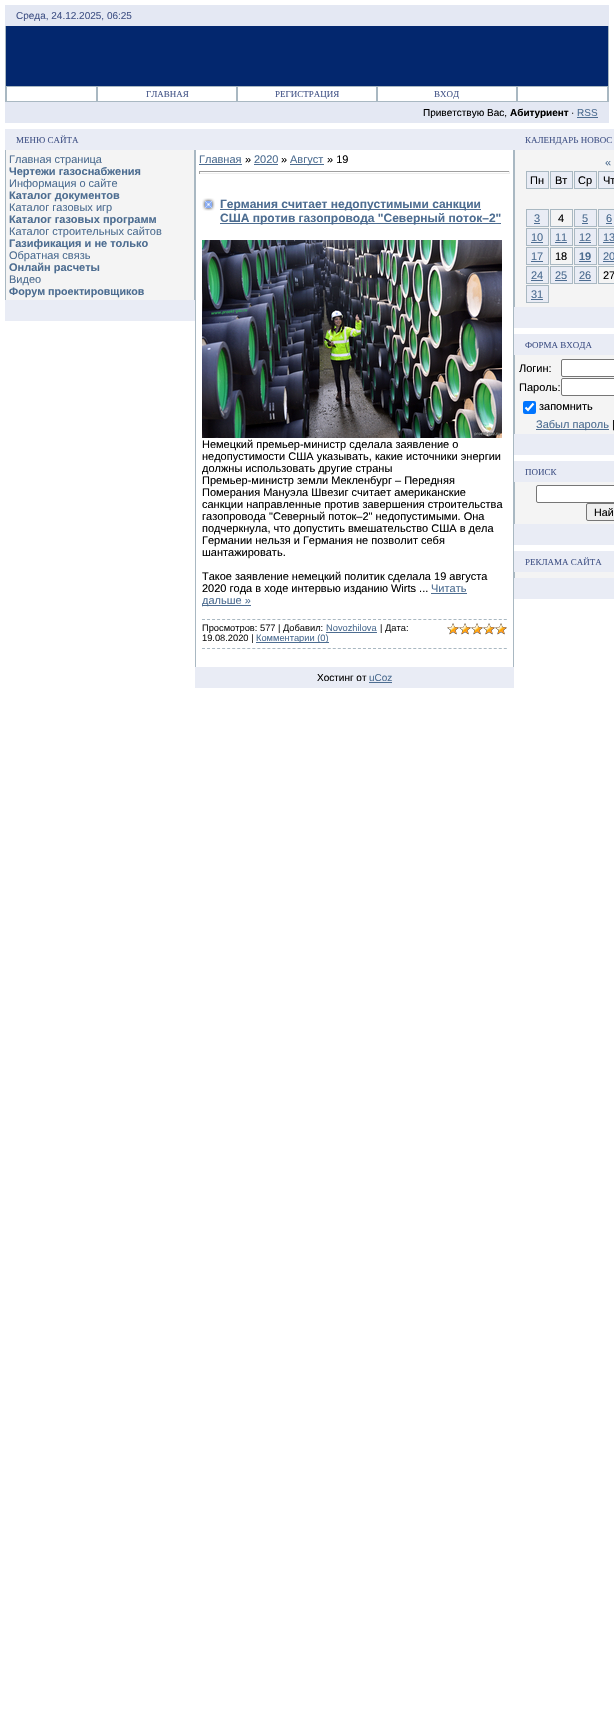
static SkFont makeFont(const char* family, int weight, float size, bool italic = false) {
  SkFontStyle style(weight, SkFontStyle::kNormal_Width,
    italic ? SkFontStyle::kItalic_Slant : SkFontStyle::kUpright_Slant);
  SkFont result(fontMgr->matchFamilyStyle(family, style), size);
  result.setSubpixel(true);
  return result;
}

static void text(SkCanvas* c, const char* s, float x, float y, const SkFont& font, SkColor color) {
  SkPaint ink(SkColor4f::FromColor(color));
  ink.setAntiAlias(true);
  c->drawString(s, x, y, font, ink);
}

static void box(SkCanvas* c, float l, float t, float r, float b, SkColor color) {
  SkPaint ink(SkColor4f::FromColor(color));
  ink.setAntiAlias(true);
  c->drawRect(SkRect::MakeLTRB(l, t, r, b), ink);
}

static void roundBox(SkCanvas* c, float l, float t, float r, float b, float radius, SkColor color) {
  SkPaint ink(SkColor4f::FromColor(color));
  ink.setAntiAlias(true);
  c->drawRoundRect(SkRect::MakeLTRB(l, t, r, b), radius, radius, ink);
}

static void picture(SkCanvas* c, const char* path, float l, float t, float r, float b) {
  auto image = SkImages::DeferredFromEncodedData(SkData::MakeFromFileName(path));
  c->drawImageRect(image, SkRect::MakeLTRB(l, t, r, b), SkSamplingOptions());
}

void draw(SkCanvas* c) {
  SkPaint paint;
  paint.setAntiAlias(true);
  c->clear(0xffffffff);
  box(c, 5, 5, 609, 26, 0xffe4e8f3);
  SkFont face1 = makeFont("Liberation Sans", 400, 10);
  text(c, "Среда, 24.12.2025, 06:25", 16, 19, face1, 0xff445588);
  box(c, 608, 26, 609, 102, 0xffa9b8c2);
  box(c, 5, 26, 6, 102, 0xffa9b8c2);
  box(c, 6, 26, 608, 86, 0xff03276e);
  paint.setStyle(SkPaint::kStroke_Style);
  paint.setStrokeWidth(1);
  paint.setColor(0xffa9b8c2);
  c->drawRect(SkRect::MakeLTRB(6.5f, 86.5f, 96.5f, 101.5f), paint);
  c->drawRect(SkRect::MakeLTRB(97.5f, 86.5f, 236.5f, 101.5f), paint);
  SkFont face2 = makeFont("Liberation Serif", 400, 9);
  text(c, "ГЛАВНАЯ", 146, 97, face2, 0xff445588);
  c->drawRect(SkRect::MakeLTRB(237.5f, 86.5f, 376.5f, 101.5f), paint);
  text(c, "РЕГИСТРАЦИЯ", 275, 97, face2, 0xff445588);
  c->drawRect(SkRect::MakeLTRB(377.5f, 86.5f, 516.5f, 101.5f), paint);
  text(c, "ВХОД", 434, 97, face2, 0xff445588);
  c->drawRect(SkRect::MakeLTRB(517.5f, 86.5f, 607.5f, 101.5f), paint);
  box(c, 5, 102, 609, 123, 0xffe4e8f3);
  text(c, "Приветствую Вас,", 423, 116, face1, 0xff000000);
  SkFont face3 = makeFont("Liberation Sans", 700, 10);
  text(c, "Абитуриент", 510, 116, face3, 0xff000000);
  text(c, "·", 571, 116, face1, 0xff000000);
  text(c, "RSS", 577, 116, face1, 0xff4d6d91);
  box(c, 577, 117, 598, 118, 0xff4d6d91);
  box(c, 5, 129, 614, 150, 0xffe9ecf5);
  text(c, "МЕНЮ САЙТА", 16, 143, face2, 0xff445588);
  box(c, 6, 150, 194, 300, 0xfff4f4f4);
  box(c, 194, 150, 195, 300, 0xffa9b8c2);
  box(c, 5, 150, 6, 300, 0xffa9b8c2);
  SkFont face4 = makeFont("Liberation Sans", 400, 11);
  text(c, "Главная страница", 9, 163, face4, 0xff4d6d91);
  SkFont face5 = makeFont("Liberation Sans", 700, 11);
  text(c, "Чертежи газоснабжения", 9, 175, face5, 0xff4d6d91);
  text(c, "Информация о сайте", 9, 187, face4, 0xff4d6d91);
  text(c, "Каталог документов", 9, 199, face5, 0xff4d6d91);
  text(c, "Каталог газовых игр", 9, 211, face4, 0xff4d6d91);
  text(c, "Каталог газовых программ", 9, 223, face5, 0xff4d6d91);
  text(c, "Каталог строительных сайтов", 9, 235, face4, 0xff4d6d91);
  text(c, "Газификация и не только", 9, 247, face5, 0xff4d6d91);
  text(c, "Обратная связь", 9, 259, face4, 0xff4d6d91);
  text(c, "Онлайн расчеты", 9, 271, face5, 0xff4d6d91);
  text(c, "Видео", 9, 283, face4, 0xff4d6d91);
  SkFont face6 = makeFont("Liberation Sans", 700, 10.7f);
  text(c, "Форум проектировщиков", 9, 295, face6, 0xff4d6d91);
  box(c, 5, 300, 195, 321, 0xffe9ecf5);
  box(c, 513, 150, 514, 667, 0xffa9b8c2);
  box(c, 195, 150, 196, 667, 0xffa9b8c2);
  text(c, "Главная", 199, 163, face4, 0xff4d6d91);
  box(c, 199, 164, 242, 165, 0xff4d6d91);
  text(c, "»", 245, 163, face4, 0xff000000);
  text(c, "2020", 254, 163, face4, 0xff4d6d91);
  box(c, 254, 164, 278, 165, 0xff4d6d91);
  text(c, "»", 281, 163, face4, 0xff000000);
  box(c, 290, 164, 324, 165, 0xff4d6d91);
  text(c, "Август", 290, 163, face4, 0xff4d6d91);
  text(c, "» 19", 327, 163, face4, 0xff000000);
  box(c, 199, 171, 510, 172, 0xff9f9f9f);
  box(c, 509, 171, 510, 174, 0xffeeeeee);
  box(c, 199, 173, 510, 174, 0xffeeeeee);
  box(c, 199, 171, 200, 174, 0xff9f9f9f);
  picture(c, "img_01.png", 202, 198, 215, 211);
  box(c, 220, 209, 481, 210, 0xff4d6d91);
  SkFont face7 = makeFont("Liberation Sans", 700, 12);
  text(c, "Германия считает недопустимыми санкции", 220, 208, face7, 0xff4d6d91);
  box(c, 220, 223, 501, 224, 0xff4d6d91);
  text(c, "США против газопровода \"Северный поток–2\"", 220, 222, face7, 0xff4d6d91);
  picture(c, "img_02.png", 202, 240, 502, 438);
  text(c, "Немецкий премьер-министр сделала заявление о", 202, 448, face4, 0xff000000);
  text(c, "недопустимости США указывать, какие источники энергии", 202, 460, face4, 0xff000000);
  text(c, "должны использовать другие страны", 202, 472, face4, 0xff000000);
  text(c, "Премьер-министр земли Мекленбург – Передняя", 202, 484, face4, 0xff000000);
  text(c, "Померания Мануэла Швезиг считает американские", 202, 496, face4, 0xff000000);
  text(c, "санкции направленные против завершения строительства", 202, 508, face4, 0xff000000);
  text(c, "газопровода \"Северный поток–2\" недопустимыми. Она", 202, 520, face4, 0xff000000);
  text(c, "подчеркнула, что допустить вмешательство США в дела", 202, 532, face4, 0xff000000);
  text(c, "Германии нельзя и Германия не позволит себя", 202, 544, face4, 0xff000000);
  text(c, "шантажировать.", 202, 556, face4, 0xff000000);
  text(c, "Такое заявление немецкий политик сделала 19 августа", 202, 580, face4, 0xff000000);
  text(c, "2020 года в ходе интервью изданию Wirts ...", 202, 592, face4, 0xff000000);
  text(c, "Читать", 431, 592, face4, 0xff4d6d91);
  box(c, 431, 593, 467, 594, 0xff4d6d91);
  box(c, 202, 605, 251, 606, 0xff4d6d91);
  text(c, "дальше »", 202, 604, face4, 0xff4d6d91);
  paint.setPathEffect(SkDashPathEffect::Make({{3, 2.03f}}, 0));
  c->drawPath(SkPathBuilder().moveTo(202, 619.5f).lineTo(507, 619.5f).detach(), paint);
  paint.setPathEffect(nullptr);
  paint.setPathEffect(SkDashPathEffect::Make({{3, 2.03f}}, 0));
  c->drawPath(SkPathBuilder().moveTo(202, 648.5f).lineTo(507, 648.5f).detach(), paint);
  paint.setPathEffect(nullptr);
  SkFont face8 = makeFont("Liberation Sans", 400, 9.3f);
  text(c, "Просмотров: 577 | Добавил:", 202, 631, face8, 0xff1a1a1a);
  text(c, "Novozhilova", 326, 631, face8, 0xff4d6d91);
  box(c, 326, 632, 377, 633, 0xff4d6d91);
  text(c, "| Дата:", 380, 631, face8, 0xff1a1a1a);
  picture(c, "img_03.png", 447, 623, 507, 635);
  picture(c, "img_04.png", 447, 623, 507, 635);
  text(c, "19.08.2020 |", 202, 641, face8, 0xff1a1a1a);
  box(c, 256, 642, 329, 643, 0xff4d6d91);
  text(c, "Комментарии (0)", 256, 641, face8, 0xff4d6d91);
  box(c, 195, 667, 514, 688, 0xffe9ecf5);
  text(c, "Хостинг от", 317, 681, face1, 0xff000000);
  text(c, "uCoz", 369, 681, face1, 0xff4d6d91);
  box(c, 369, 682, 392, 683, 0xff4d6d91);
  text(c, "КАЛЕНДАРЬ НОВОС", 525, 143, face2, 0xff445588);
  box(c, 515, 150, 614, 307, 0xfff4f4f4);
  box(c, 514, 150, 515, 307, 0xffa9b8c2);
  text(c, "«", 605, 166, face4, 0xff4d6d91);
  paint.setStyle(SkPaint::kFill_Style);
  paint.setColor(0xffe9ecf5);
  c->drawRect(SkRect::MakeLTRB(526.5f, 171.5f, 548.5f, 188.5f), paint);
  paint.setStyle(SkPaint::kStroke_Style);
  paint.setColor(0xffa9b8c2);
  c->drawRect(SkRect::MakeLTRB(526.5f, 171.5f, 548.5f, 188.5f), paint);
  text(c, "Пн", 530, 184, face4, 0xff000000);
  paint.setStyle(SkPaint::kFill_Style);
  paint.setColor(0xffe9ecf5);
  c->drawRect(SkRect::MakeLTRB(550.5f, 171.5f, 572.5f, 188.5f), paint);
  paint.setStyle(SkPaint::kStroke_Style);
  paint.setColor(0xffa9b8c2);
  c->drawRect(SkRect::MakeLTRB(550.5f, 171.5f, 572.5f, 188.5f), paint);
  text(c, "Вт", 555, 184, face4, 0xff000000);
  paint.setStyle(SkPaint::kFill_Style);
  paint.setColor(0xffe9ecf5);
  c->drawRect(SkRect::MakeLTRB(574.5f, 171.5f, 596.5f, 188.5f), paint);
  paint.setStyle(SkPaint::kStroke_Style);
  paint.setColor(0xffa9b8c2);
  c->drawRect(SkRect::MakeLTRB(574.5f, 171.5f, 596.5f, 188.5f), paint);
  text(c, "Ср", 578, 184, face4, 0xff000000);
  paint.setStyle(SkPaint::kFill_Style);
  paint.setColor(0xffe9ecf5);
  c->drawRect(SkRect::MakeLTRB(598.5f, 171.5f, 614.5f, 188.5f), paint);
  paint.setStyle(SkPaint::kStroke_Style);
  paint.setColor(0xffa9b8c2);
  c->drawRect(SkRect::MakeLTRB(598.5f, 171.5f, 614.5f, 188.5f), paint);
  text(c, "Чт", 603, 184, face4, 0xff000000);
  paint.setStyle(SkPaint::kFill_Style);
  paint.setColor(0xffe9ecf5);
  c->drawRect(SkRect::MakeLTRB(526.5f, 209.5f, 548.5f, 226.5f), paint);
  paint.setStyle(SkPaint::kStroke_Style);
  paint.setColor(0xffa9b8c2);
  c->drawRect(SkRect::MakeLTRB(526.5f, 209.5f, 548.5f, 226.5f), paint);
  text(c, "3", 534, 222, face4, 0xff4d6d91);
  box(c, 534, 223, 540, 224, 0xff4d6d91);
  c->drawRect(SkRect::MakeLTRB(550.5f, 209.5f, 572.5f, 226.5f), paint);
  text(c, "4", 558, 222, face4, 0xff000000);
  paint.setStyle(SkPaint::kFill_Style);
  paint.setColor(0xffe9ecf5);
  c->drawRect(SkRect::MakeLTRB(574.5f, 209.5f, 596.5f, 226.5f), paint);
  paint.setStyle(SkPaint::kStroke_Style);
  paint.setColor(0xffa9b8c2);
  c->drawRect(SkRect::MakeLTRB(574.5f, 209.5f, 596.5f, 226.5f), paint);
  text(c, "5", 582, 222, face4, 0xff4d6d91);
  box(c, 582, 223, 588, 224, 0xff4d6d91);
  paint.setStyle(SkPaint::kFill_Style);
  paint.setColor(0xffe9ecf5);
  c->drawRect(SkRect::MakeLTRB(598.5f, 209.5f, 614.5f, 226.5f), paint);
  paint.setStyle(SkPaint::kStroke_Style);
  paint.setColor(0xffa9b8c2);
  c->drawRect(SkRect::MakeLTRB(598.5f, 209.5f, 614.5f, 226.5f), paint);
  text(c, "6", 606, 222, face4, 0xff4d6d91);
  box(c, 606, 223, 612, 224, 0xff4d6d91);
  paint.setStyle(SkPaint::kFill_Style);
  paint.setColor(0xffe9ecf5);
  c->drawRect(SkRect::MakeLTRB(526.5f, 228.5f, 548.5f, 245.5f), paint);
  paint.setStyle(SkPaint::kStroke_Style);
  paint.setColor(0xffa9b8c2);
  c->drawRect(SkRect::MakeLTRB(526.5f, 228.5f, 548.5f, 245.5f), paint);
  text(c, "10", 531, 241, face4, 0xff4d6d91);
  box(c, 531, 242, 543, 243, 0xff4d6d91);
  paint.setStyle(SkPaint::kFill_Style);
  paint.setColor(0xffe9ecf5);
  c->drawRect(SkRect::MakeLTRB(550.5f, 228.5f, 572.5f, 245.5f), paint);
  paint.setStyle(SkPaint::kStroke_Style);
  paint.setColor(0xffa9b8c2);
  c->drawRect(SkRect::MakeLTRB(550.5f, 228.5f, 572.5f, 245.5f), paint);
  text(c, "11", 555, 241, face4, 0xff4d6d91);
  box(c, 555, 242, 567, 243, 0xff4d6d91);
  paint.setStyle(SkPaint::kFill_Style);
  paint.setColor(0xffe9ecf5);
  c->drawRect(SkRect::MakeLTRB(574.5f, 228.5f, 596.5f, 245.5f), paint);
  paint.setStyle(SkPaint::kStroke_Style);
  paint.setColor(0xffa9b8c2);
  c->drawRect(SkRect::MakeLTRB(574.5f, 228.5f, 596.5f, 245.5f), paint);
  text(c, "12", 579, 241, face4, 0xff4d6d91);
  box(c, 579, 242, 591, 243, 0xff4d6d91);
  paint.setStyle(SkPaint::kFill_Style);
  paint.setColor(0xffe9ecf5);
  c->drawRect(SkRect::MakeLTRB(598.5f, 228.5f, 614.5f, 245.5f), paint);
  paint.setStyle(SkPaint::kStroke_Style);
  paint.setColor(0xffa9b8c2);
  c->drawRect(SkRect::MakeLTRB(598.5f, 228.5f, 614.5f, 245.5f), paint);
  text(c, "13", 603, 241, face4, 0xff4d6d91);
  box(c, 603, 242, 614, 243, 0xff4d6d91);
  paint.setStyle(SkPaint::kFill_Style);
  paint.setColor(0xffe9ecf5);
  c->drawRect(SkRect::MakeLTRB(526.5f, 247.5f, 548.5f, 264.5f), paint);
  paint.setStyle(SkPaint::kStroke_Style);
  paint.setColor(0xffa9b8c2);
  c->drawRect(SkRect::MakeLTRB(526.5f, 247.5f, 548.5f, 264.5f), paint);
  text(c, "17", 531, 260, face4, 0xff4d6d91);
  box(c, 531, 261, 543, 262, 0xff4d6d91);
  c->drawRect(SkRect::MakeLTRB(550.5f, 247.5f, 572.5f, 264.5f), paint);
  text(c, "18", 555, 260, face4, 0xff000000);
  paint.setStyle(SkPaint::kFill_Style);
  paint.setColor(0xffe9ecf5);
  c->drawRect(SkRect::MakeLTRB(574.5f, 247.5f, 596.5f, 264.5f), paint);
  paint.setStyle(SkPaint::kStroke_Style);
  paint.setColor(0xffa9b8c2);
  c->drawRect(SkRect::MakeLTRB(574.5f, 247.5f, 596.5f, 264.5f), paint);
  text(c, "19", 579, 260, face5, 0xff4d6d91);
  box(c, 579, 261, 591, 262, 0xff4d6d91);
  paint.setStyle(SkPaint::kFill_Style);
  paint.setColor(0xffe9ecf5);
  c->drawRect(SkRect::MakeLTRB(598.5f, 247.5f, 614.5f, 264.5f), paint);
  paint.setStyle(SkPaint::kStroke_Style);
  paint.setColor(0xffa9b8c2);
  c->drawRect(SkRect::MakeLTRB(598.5f, 247.5f, 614.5f, 264.5f), paint);
  text(c, "20", 603, 260, face4, 0xff4d6d91);
  box(c, 603, 261, 614, 262, 0xff4d6d91);
  paint.setStyle(SkPaint::kFill_Style);
  paint.setColor(0xffe9ecf5);
  c->drawRect(SkRect::MakeLTRB(526.5f, 266.5f, 548.5f, 283.5f), paint);
  paint.setStyle(SkPaint::kStroke_Style);
  paint.setColor(0xffa9b8c2);
  c->drawRect(SkRect::MakeLTRB(526.5f, 266.5f, 548.5f, 283.5f), paint);
  text(c, "24", 531, 279, face4, 0xff4d6d91);
  box(c, 531, 280, 543, 281, 0xff4d6d91);
  paint.setStyle(SkPaint::kFill_Style);
  paint.setColor(0xffe9ecf5);
  c->drawRect(SkRect::MakeLTRB(550.5f, 266.5f, 572.5f, 283.5f), paint);
  paint.setStyle(SkPaint::kStroke_Style);
  paint.setColor(0xffa9b8c2);
  c->drawRect(SkRect::MakeLTRB(550.5f, 266.5f, 572.5f, 283.5f), paint);
  text(c, "25", 555, 279, face4, 0xff4d6d91);
  box(c, 555, 280, 567, 281, 0xff4d6d91);
  paint.setStyle(SkPaint::kFill_Style);
  paint.setColor(0xffe9ecf5);
  c->drawRect(SkRect::MakeLTRB(574.5f, 266.5f, 596.5f, 283.5f), paint);
  paint.setStyle(SkPaint::kStroke_Style);
  paint.setColor(0xffa9b8c2);
  c->drawRect(SkRect::MakeLTRB(574.5f, 266.5f, 596.5f, 283.5f), paint);
  text(c, "26", 579, 279, face4, 0xff4d6d91);
  box(c, 579, 280, 591, 281, 0xff4d6d91);
  c->drawRect(SkRect::MakeLTRB(598.5f, 266.5f, 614.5f, 283.5f), paint);
  text(c, "27", 603, 279, face4, 0xff000000);
  paint.setStyle(SkPaint::kFill_Style);
  paint.setColor(0xffe9ecf5);
  c->drawRect(SkRect::MakeLTRB(526.5f, 285.5f, 548.5f, 302.5f), paint);
  paint.setStyle(SkPaint::kStroke_Style);
  paint.setColor(0xffa9b8c2);
  c->drawRect(SkRect::MakeLTRB(526.5f, 285.5f, 548.5f, 302.5f), paint);
  text(c, "31", 531, 298, face4, 0xff4d6d91);
  box(c, 531, 299, 543, 300, 0xff4d6d91);
  box(c, 514, 307, 614, 328, 0xffe9ecf5);
  box(c, 514, 334, 614, 355, 0xffe9ecf5);
  text(c, "ФОРМА ВХОДА", 525, 348, face2, 0xff445588);
  box(c, 515, 355, 614, 434, 0xfff4f4f4);
  box(c, 514, 355, 515, 434, 0xffa9b8c2);
  text(c, "Логин:", 519, 372, face4, 0xff000000);
  paint.setStyle(SkPaint::kFill_Style);
  paint.setColor(0xffffffff);
  c->drawRoundRect(SkRect::MakeLTRB(561.5f, 359.5f, 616.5f, 376.5f), 1.5f, 1.5f, paint);
  paint.setStyle(SkPaint::kStroke_Style);
  paint.setColor(0xff767676);
  c->drawRoundRect(SkRect::MakeLTRB(561.5f, 359.5f, 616.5f, 376.5f), 1.5f, 1.5f, paint);
  text(c, "Пароль:", 519, 391, face4, 0xff000000);
  paint.setStyle(SkPaint::kFill_Style);
  paint.setColor(0xffffffff);
  c->drawRoundRect(SkRect::MakeLTRB(561.5f, 378.5f, 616.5f, 395.5f), 1.5f, 1.5f, paint);
  paint.setStyle(SkPaint::kStroke_Style);
  paint.setColor(0xff767676);
  c->drawRoundRect(SkRect::MakeLTRB(561.5f, 378.5f, 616.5f, 395.5f), 1.5f, 1.5f, paint);
  roundBox(c, 523, 401, 536, 414, 2, 0xff0075ff);
  paint.setStrokeWidth(2.1f);
  paint.setColor(0xffffffff);
  c->drawPath(SkPathBuilder().moveTo(525.5f, 407.5f).lineTo(528, 410).lineTo(533.5f, 403.5f).detach(), paint);
  text(c, "запомнить", 539, 410, face4, 0xff000000);
  box(c, 536, 429, 609, 430, 0xff4d6d91);
  text(c, "Забыл пароль", 536, 428, face4, 0xff4d6d91);
  text(c, "|", 612, 428, face4, 0xff000000);
  box(c, 514, 434, 614, 455, 0xffe9ecf5);
  box(c, 514, 461, 614, 482, 0xffe9ecf5);
  text(c, "ПОИСК", 525, 475, face2, 0xff445588);
  box(c, 515, 482, 614, 524, 0xfff4f4f4);
  box(c, 514, 482, 515, 524, 0xffa9b8c2);
  paint.setStyle(SkPaint::kFill_Style);
  c->drawRoundRect(SkRect::MakeLTRB(536.5f, 485.5f, 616.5f, 502.5f), 1.5f, 1.5f, paint);
  paint.setStyle(SkPaint::kStroke_Style);
  paint.setStrokeWidth(1);
  paint.setColor(0xff767676);
  c->drawRoundRect(SkRect::MakeLTRB(536.5f, 485.5f, 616.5f, 502.5f), 1.5f, 1.5f, paint);
  paint.setStyle(SkPaint::kFill_Style);
  paint.setColor(0xffefefef);
  c->drawRoundRect(SkRect::MakeLTRB(586.5f, 503.5f, 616.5f, 520.5f), 1.5f, 1.5f, paint);
  paint.setStyle(SkPaint::kStroke_Style);
  paint.setColor(0xff767676);
  c->drawRoundRect(SkRect::MakeLTRB(586.5f, 503.5f, 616.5f, 520.5f), 1.5f, 1.5f, paint);
  SkFont face9 = makeFont("Liberation Sans", 400, 10.7f);
  text(c, "Най", 594, 516, face9, 0xff000000);
  box(c, 514, 524, 614, 545, 0xffe9ecf5);
  box(c, 514, 551, 614, 572, 0xffe9ecf5);
  text(c, "РЕКЛАМА САЙТА", 525, 565, face2, 0xff445588);
  box(c, 514, 572, 614, 578, 0xfff4f4f4);
  box(c, 514, 572, 515, 578, 0xffa9b8c2);
  box(c, 514, 578, 614, 599, 0xffe9ecf5);
}
